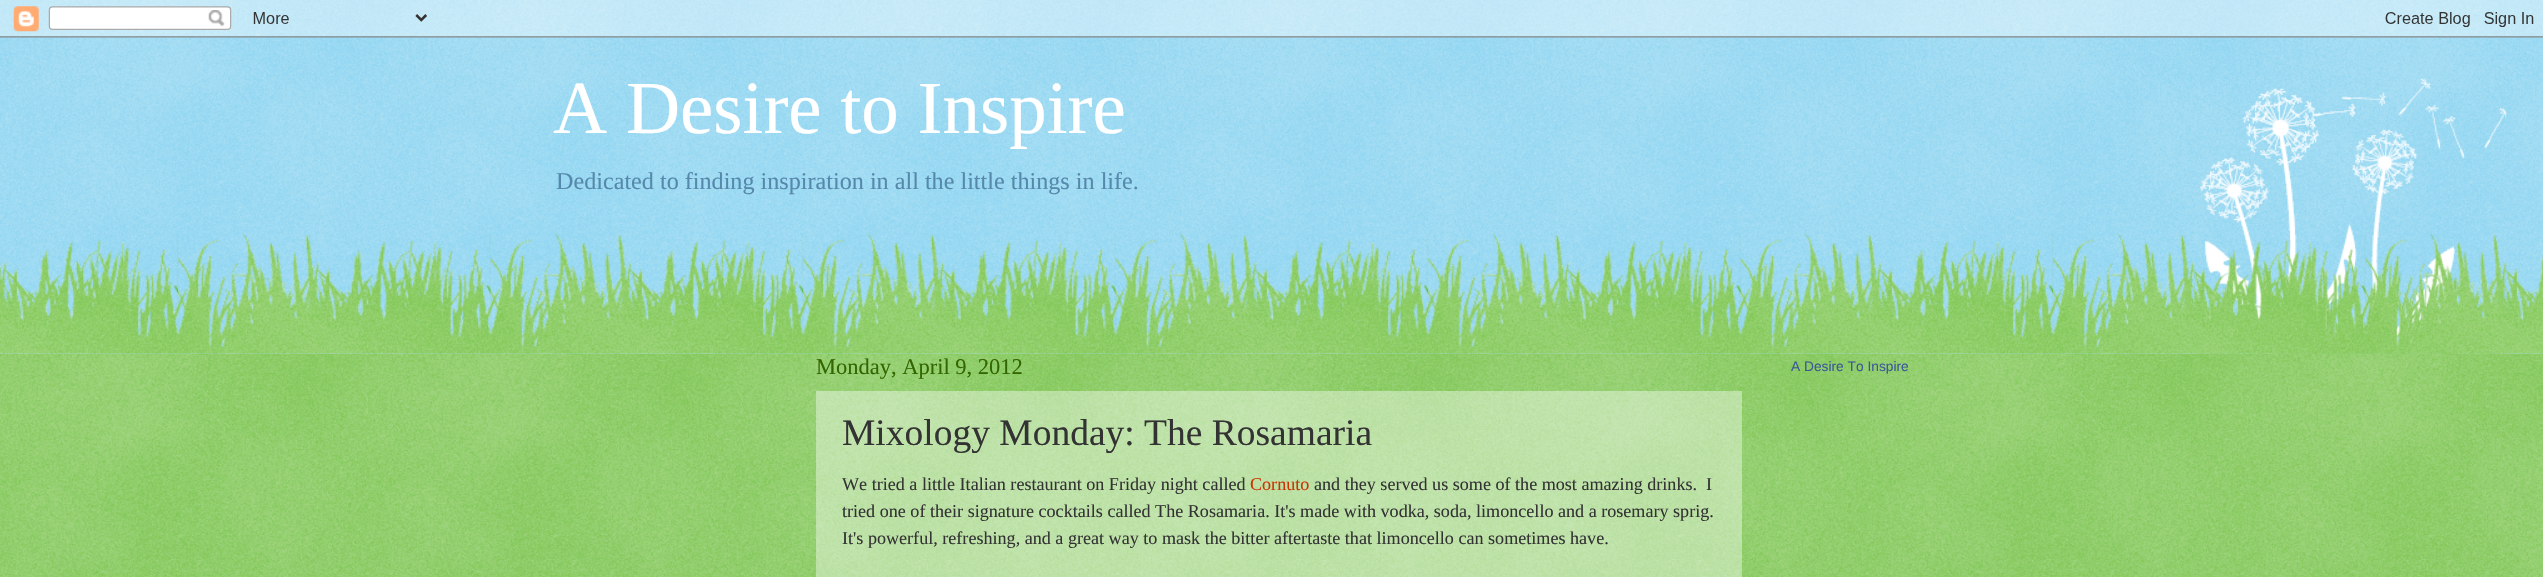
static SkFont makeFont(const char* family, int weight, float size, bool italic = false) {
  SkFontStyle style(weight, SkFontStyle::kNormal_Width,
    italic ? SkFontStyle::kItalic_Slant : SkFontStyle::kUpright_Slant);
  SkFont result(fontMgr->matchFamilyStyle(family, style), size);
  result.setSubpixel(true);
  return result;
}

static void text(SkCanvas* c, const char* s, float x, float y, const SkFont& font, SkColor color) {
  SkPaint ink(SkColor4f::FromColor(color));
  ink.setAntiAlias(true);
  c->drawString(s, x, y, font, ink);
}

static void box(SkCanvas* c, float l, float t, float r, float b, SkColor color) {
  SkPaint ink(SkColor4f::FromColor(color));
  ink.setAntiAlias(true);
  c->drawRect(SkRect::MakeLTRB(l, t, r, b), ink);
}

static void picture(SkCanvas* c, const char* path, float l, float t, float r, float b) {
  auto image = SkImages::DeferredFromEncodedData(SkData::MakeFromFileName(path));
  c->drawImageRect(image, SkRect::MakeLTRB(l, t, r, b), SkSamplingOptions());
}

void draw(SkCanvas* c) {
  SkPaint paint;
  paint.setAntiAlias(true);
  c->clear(0xff77ccee);
  picture(c, "img_01.png", 0, 0, 2543, 354);
  picture(c, "img_02.png", 0, 0, 2543, 38);
  SkFont face1 = makeFont("Liberation Serif", 400, 75);
  text(c, "A Desire to Inspire", 553, 133, face1, 0xffffffff);
  SkFont face2 = makeFont("Liberation Serif", 400, 24.15f);
  text(c, "Dedicated to finding inspiration in all the little things in life.", 556, 189, face2, 0xff5588aa);
  box(c, 0, 354, 2543, 577, 0xff66bb33);
  picture(c, "img_03.png", 0, 353, 2543, 577);
  picture(c, "img_04.png", 2193, 78, 2507, 354);
  picture(c, "img_05.png", 0, 233, 2543, 354);
  SkFont face3 = makeFont("Liberation Serif", 400, 22.5f);
  text(c, "Monday, April 9, 2012", 816, 374, face3, 0xff336600);
  box(c, 816, 391, 1742, 577, 0x66ffffff);
  SkFont face4 = makeFont("Liberation Serif", 400, 37.5f);
  text(c, "Mixology Monday: The Rosamaria", 842, 445, face4, 0xff333333);
  SkFont face5 = makeFont("Liberation Serif", 400, 18.1f);
  text(c, "We tried a little Italian restaurant on Friday night called", 842, 490, face5, 0xff333333);
  text(c, "Cornuto", 1250, 490, face5, 0xffcc3300);
  text(c, "and they served us some of the most amazing drinks.  I", 1314, 490, face5, 0xff333333);
  text(c, "tried one of their signature cocktails called The Rosamaria. It's made with vodka, soda, limoncello and a rosemary sprig.", 842, 517, face5, 0xff333333);
  text(c, "It's powerful, refreshing, and a great way to mask the bitter aftertaste that limoncello can sometimes have.", 842, 544, face5, 0xff333333);
  SkFont face6 = makeFont("Liberation Sans", 400, 13.75f);
  text(c, "A Desire To Inspire", 1791, 371, face6, 0xff3b5998);
}
